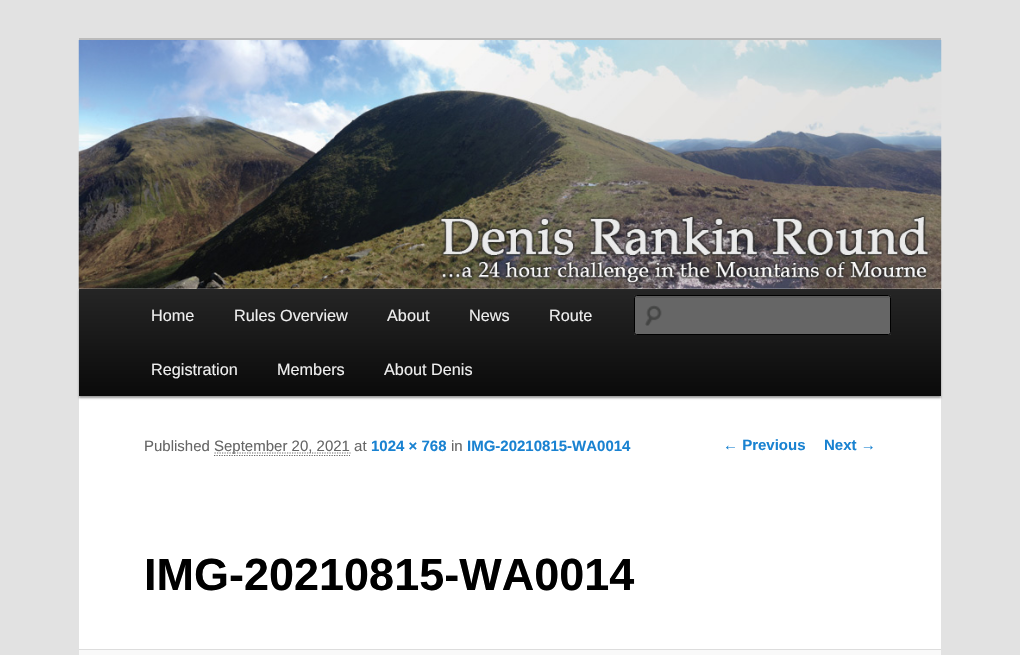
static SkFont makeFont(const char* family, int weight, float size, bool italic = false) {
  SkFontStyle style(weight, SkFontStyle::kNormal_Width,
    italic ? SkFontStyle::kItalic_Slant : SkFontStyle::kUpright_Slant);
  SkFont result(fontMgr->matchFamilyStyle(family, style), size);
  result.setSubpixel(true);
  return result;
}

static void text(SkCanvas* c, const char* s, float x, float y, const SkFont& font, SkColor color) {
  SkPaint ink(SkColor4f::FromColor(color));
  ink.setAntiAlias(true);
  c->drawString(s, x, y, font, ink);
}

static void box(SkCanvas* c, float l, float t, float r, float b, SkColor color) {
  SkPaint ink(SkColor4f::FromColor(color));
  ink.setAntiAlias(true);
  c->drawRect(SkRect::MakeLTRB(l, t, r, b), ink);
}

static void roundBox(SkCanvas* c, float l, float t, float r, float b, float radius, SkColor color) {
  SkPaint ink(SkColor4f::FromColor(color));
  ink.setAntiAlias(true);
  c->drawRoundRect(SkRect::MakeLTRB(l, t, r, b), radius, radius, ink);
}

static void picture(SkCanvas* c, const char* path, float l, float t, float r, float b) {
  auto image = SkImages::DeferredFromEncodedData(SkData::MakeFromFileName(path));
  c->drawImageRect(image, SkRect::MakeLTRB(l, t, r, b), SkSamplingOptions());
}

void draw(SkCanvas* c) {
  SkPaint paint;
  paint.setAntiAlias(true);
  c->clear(0xffe2e2e2);
  box(c, 79, 288, 941, 649, 0xffffffff);
  box(c, 79, 38, 941, 40, 0xffbbbbbb);
  paint.setColor(0x66000000);
  paint.setMaskFilter(SkMaskFilter::MakeBlur(kNormal_SkBlurStyle, 1));
  c->drawRect(SkRect::MakeLTRB(79, 290, 941, 398), paint);
  paint.setMaskFilter(nullptr);
  picture(c, "img_01.png", 78, 40, 942, 289);
  {
    const SkColor colors[] = {0xff252525, 0xff0a0a0a};
    const float stops[] = {0, 1};
    const SkPoint ends[] = {{510, 289}, {510, 396}};
    paint.setShader(SkGradientShader::MakeLinear(ends, colors, stops, 2, SkTileMode::kClamp));
    paint.setAlpha(255);
  }
  c->drawRect(SkRect::MakeLTRB(79, 289, 941, 396), paint);
  SkFont face1 = makeFont("Liberation Sans", 400, 16.25f);
  text(c, "Home", 151, 321, face1, 0xffeeeeee);
  text(c, "Rules Overview", 234, 321, face1, 0xffeeeeee);
  text(c, "About", 387, 321, face1, 0xffeeeeee);
  text(c, "News", 469, 321, face1, 0xffeeeeee);
  text(c, "Route", 549, 321, face1, 0xffeeeeee);
  text(c, "Registration", 151, 375, face1, 0xffeeeeee);
  text(c, "Members", 277, 375, face1, 0xffeeeeee);
  text(c, "About Denis", 384, 375, face1, 0xffeeeeee);
  roundBox(c, 634, 295, 891, 335, 2.5f, 0xff666666);
  picture(c, "img_02.png", 645, 305, 662, 326);
  paint.setShader(nullptr);
  paint.setColor(0xff5c5c5c);
  c->drawPath(SkPathBuilder().moveTo(636, 298).lineTo(889, 298).lineTo(890, 299).cubicTo(890, 298, 890, 296, 889, 296).lineTo(635, 296).lineTo(635, 299).close().detach(), paint);
  paint.setStyle(SkPaint::kStroke_Style);
  paint.setStrokeWidth(1);
  paint.setColor(0xff000000);
  c->drawRoundRect(SkRect::MakeLTRB(634.5f, 295.5f, 890.5f, 334.5f), 2, 2, paint);
  SkFont face2 = makeFont("Liberation Sans", 400, 15);
  text(c, "Published", 144, 451, face2, 0xff666666);
  paint.setStrokeWidth(1.2f);
  paint.setColor(0xff666666);
  paint.setPathEffect(SkDashPathEffect::Make({{1.25f, 1.25f}}, 0));
  c->drawPath(SkPathBuilder().moveTo(214, 455.5f).lineTo(350, 455.5f).detach(), paint);
  paint.setPathEffect(nullptr);
  paint.setPathEffect(SkDashPathEffect::Make({{1.25f, 1.25f}}, 0));
  c->drawPath(SkPathBuilder().moveTo(214.5f, 453).lineTo(350.5f, 453).detach(), paint);
  paint.setPathEffect(nullptr);
  text(c, "September 20, 2021 at", 214, 451, face2, 0xff666666);
  SkFont face3 = makeFont("Liberation Sans", 700, 15);
  text(c, "1024 × 768", 371, 451, face3, 0xff1982d1);
  text(c, "in", 451, 451, face2, 0xff666666);
  text(c, "IMG-20210815-WA0014", 467, 451, face3, 0xff1982d1);
  SkFont face4 = makeFont("Liberation Sans", 700, 45);
  text(c, "IMG-20210815-WA0014", 144, 590, face4, 0xff000000);
  box(c, 79, 650, 941, 655, 0xfff9f9f9);
  box(c, 79, 649, 941, 650, 0xffdddddd);
  text(c, "← Previous", 723, 450, face3, 0xff1982d1);
  text(c, "Next →", 824, 450, face3, 0xff1982d1);
}
